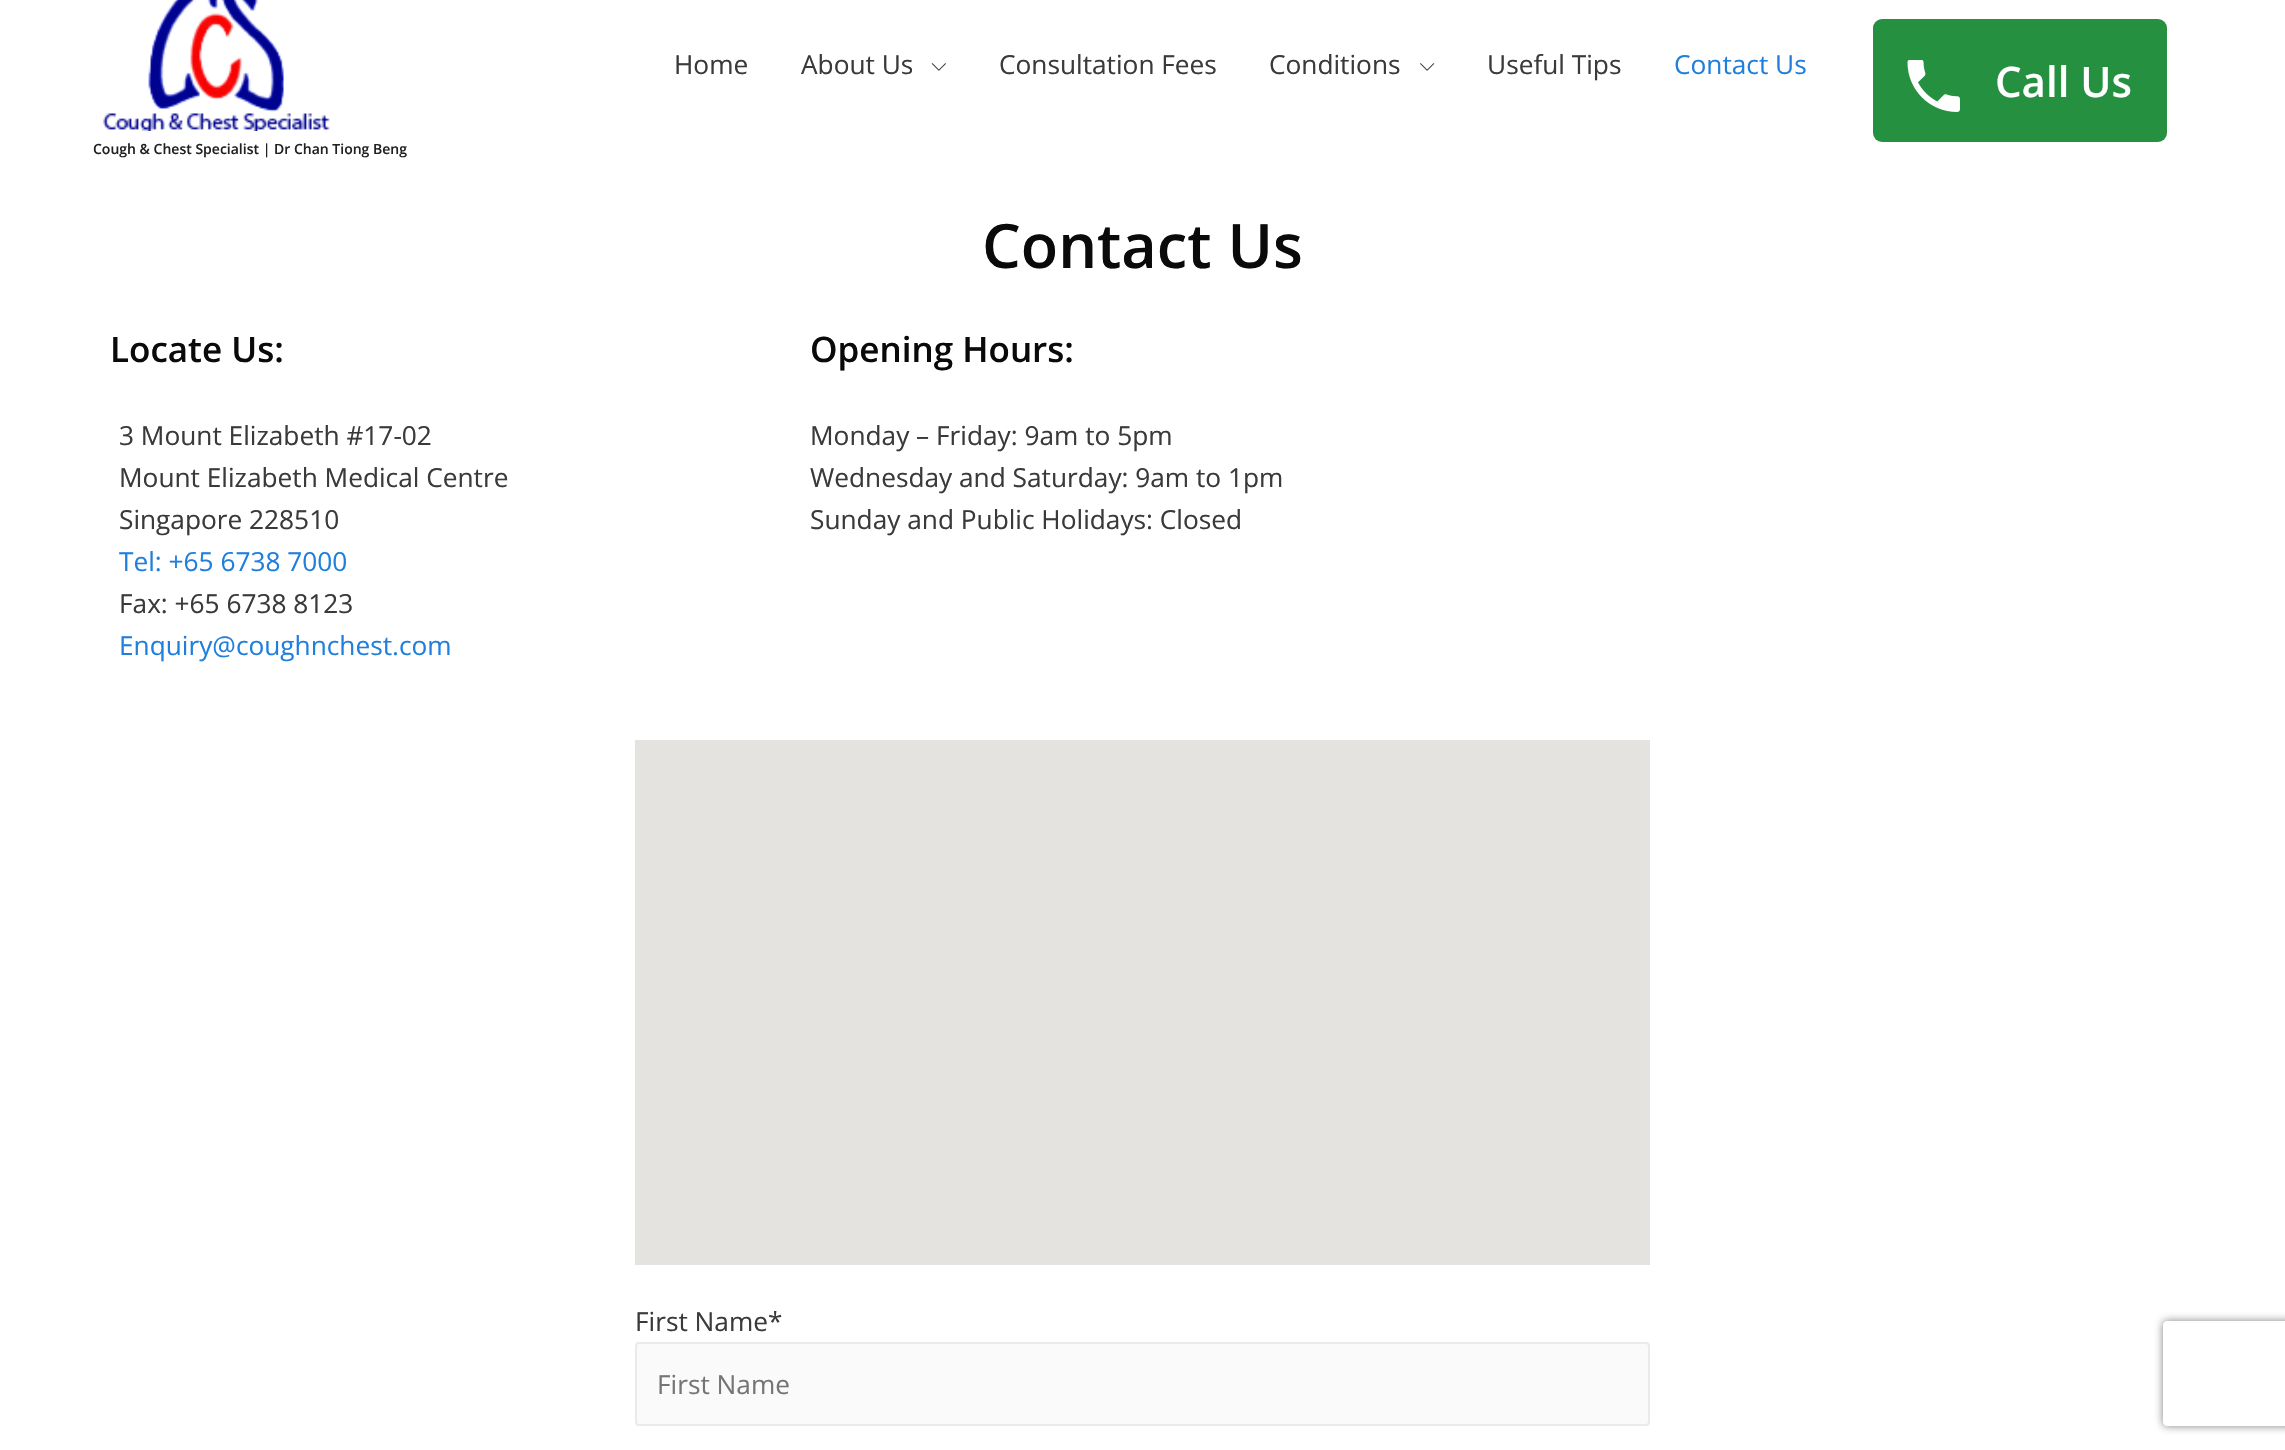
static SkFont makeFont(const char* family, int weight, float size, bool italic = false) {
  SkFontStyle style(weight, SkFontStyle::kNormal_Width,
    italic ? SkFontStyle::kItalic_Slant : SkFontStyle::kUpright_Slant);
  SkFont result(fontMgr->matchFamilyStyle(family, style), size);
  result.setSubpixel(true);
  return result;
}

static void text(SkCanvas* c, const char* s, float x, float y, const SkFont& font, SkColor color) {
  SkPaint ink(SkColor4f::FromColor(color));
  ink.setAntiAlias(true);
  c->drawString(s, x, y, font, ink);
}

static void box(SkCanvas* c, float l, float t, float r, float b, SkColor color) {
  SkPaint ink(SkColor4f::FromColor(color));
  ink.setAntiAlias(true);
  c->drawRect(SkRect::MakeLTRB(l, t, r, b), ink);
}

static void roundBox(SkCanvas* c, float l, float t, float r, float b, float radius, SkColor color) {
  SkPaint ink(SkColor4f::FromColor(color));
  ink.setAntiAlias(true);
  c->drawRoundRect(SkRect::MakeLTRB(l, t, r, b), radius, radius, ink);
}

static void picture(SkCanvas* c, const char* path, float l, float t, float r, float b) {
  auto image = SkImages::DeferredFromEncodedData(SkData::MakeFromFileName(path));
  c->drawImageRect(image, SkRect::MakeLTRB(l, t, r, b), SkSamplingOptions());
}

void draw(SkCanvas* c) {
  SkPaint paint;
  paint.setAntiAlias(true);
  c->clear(0xffffffff);
  SkFont face1 = makeFont("Open Sans", 400, 26.25f);
  text(c, "Home", 674, 74, face1, 0xff3a3a3a);
  text(c, "About Us", 801, 74, face1, 0xff3a3a3a);
  picture(c, "img_01.png", 931, 63, 946, 71);
  text(c, "Consultation Fees", 999, 74, face1, 0xff3a3a3a);
  text(c, "Conditions", 1269, 74, face1, 0xff3a3a3a);
  picture(c, "img_02.png", 1420, 63, 1435, 71);
  text(c, "Useful Tips", 1487, 74, face1, 0xff3a3a3a);
  text(c, "Contact Us", 1674, 74, face1, 0xff207fdc);
  roundBox(c, 1873, 19, 2167, 142, 9, 0xff269041);
  picture(c, "img_03.png", 1907, 60, 1960, 112);
  SkFont face2 = makeFont("Open Sans", 600, 42);
  text(c, "Call Us", 1995, 97, face2, 0xffffffff);
  picture(c, "img_04.png", 102, 0, 330, 131);
  SkFont face3 = makeFont("Open Sans", 600, 14);
  text(c, "Cough & Chest Specialist | Dr Chan Tiong Beng", 93, 154, face3, 0xff222222);
  SkFont face4 = makeFont("Open Sans", 600, 61.25f);
  text(c, "Contact Us", 982, 268, face4, 0xff0a0a0a);
  SkFont face5 = makeFont("Open Sans", 600, 35);
  text(c, "Locate Us:", 110, 362, face5, 0xff0a0a0a);
  text(c, "3 Mount Elizabeth #17-02", 119, 445, face1, 0xff3a3a3a);
  text(c, "Mount Elizabeth Medical Centre", 119, 487, face1, 0xff3a3a3a);
  text(c, "Singapore 228510", 119, 529, face1, 0xff3a3a3a);
  text(c, "Tel: +65 6738 7000", 119, 571, face1, 0xff207fdc);
  text(c, "Fax: +65 6738 8123", 119, 613, face1, 0xff3a3a3a);
  text(c, "Enquiry@coughnchest.com", 119, 655, face1, 0xff207fdc);
  text(c, "Opening Hours:", 810, 362, face5, 0xff0a0a0a);
  text(c, "Monday – Friday: 9am to 5pm", 810, 445, face1, 0xff3a3a3a);
  text(c, "Wednesday and Saturday: 9am to 1pm", 810, 487, face1, 0xff3a3a3a);
  text(c, "Sunday and Public Holidays: Closed", 810, 529, face1, 0xff3a3a3a);
  box(c, 635, 740, 1650, 1265, 0xffe5e3df);
  text(c, "First Name*", 635, 1331, face1, 0xff3a3a3a);
  paint.setColor(0xfffafafa);
  c->drawRoundRect(SkRect::MakeLTRB(636, 1343, 1649, 1425), 3, 3, paint);
  paint.setStyle(SkPaint::kStroke_Style);
  paint.setStrokeWidth(2);
  paint.setColor(0xffeaeaea);
  c->drawRoundRect(SkRect::MakeLTRB(636, 1343, 1649, 1425), 3, 3, paint);
  text(c, "First Name", 657, 1394, face1, 0xff757575);
  c->save();
  c->clipPath(SkPathBuilder(SkPathFillType::kEvenOdd).moveTo(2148, 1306).lineTo(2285, 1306).lineTo(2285, 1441).lineTo(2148, 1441).close().moveTo(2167, 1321).lineTo(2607, 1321).cubicTo(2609, 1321, 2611, 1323, 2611, 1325).lineTo(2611, 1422).cubicTo(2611, 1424, 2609, 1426, 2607, 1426).lineTo(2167, 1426).cubicTo(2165, 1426, 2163, 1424, 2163, 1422).lineTo(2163, 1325).cubicTo(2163, 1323, 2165, 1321, 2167, 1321).close().detach(), true);
  paint.setStyle(SkPaint::kFill_Style);
  paint.setColor(0xff808080);
  paint.setMaskFilter(SkMaskFilter::MakeBlur(kNormal_SkBlurStyle, 4.5f));
  c->drawRoundRect(SkRect::MakeLTRB(2163, 1321, 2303, 1426), 4, 4, paint);
  paint.setMaskFilter(nullptr);
  c->restore();
}
